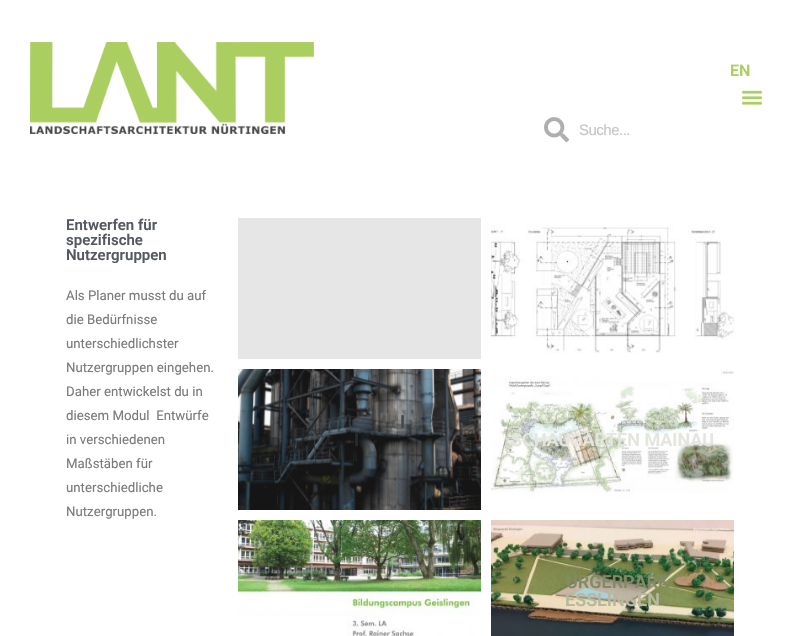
static SkFont makeFont(const char* family, int weight, float size, bool italic = false) {
  SkFontStyle style(weight, SkFontStyle::kNormal_Width,
    italic ? SkFontStyle::kItalic_Slant : SkFontStyle::kUpright_Slant);
  SkFont result(fontMgr->matchFamilyStyle(family, style), size);
  result.setSubpixel(true);
  return result;
}

static void text(SkCanvas* c, const char* s, float x, float y, const SkFont& font, SkColor color) {
  SkPaint ink(SkColor4f::FromColor(color));
  ink.setAntiAlias(true);
  c->drawString(s, x, y, font, ink);
}

static void spacedText(SkCanvas* c, const char* s, float x, float y, const SkFont& font, const SkPaint& ink, float letter, float word) {
  std::vector<SkGlyphID> glyphs(font.countText(s, strlen(s), SkTextEncoding::kUTF8));
  std::vector<float> xs(glyphs.size());
  font.textToGlyphs(s, strlen(s), SkTextEncoding::kUTF8, glyphs);
  font.getXPos(glyphs, xs, x);
  float extra = 0;
  for (size_t i = 0; i < glyphs.size(); i++) {
    xs[i] += extra;
    extra += letter + word * (glyphs[i] == font.unicharToGlyph(' '));
  }
  c->drawTextBlob(SkTextBlob::MakeFromPosHGlyphs(glyphs, xs, y, font), 0, 0, ink);
}

static void box(SkCanvas* c, float l, float t, float r, float b, SkColor color) {
  SkPaint ink(SkColor4f::FromColor(color));
  ink.setAntiAlias(true);
  c->drawRect(SkRect::MakeLTRB(l, t, r, b), ink);
}

static void picture(SkCanvas* c, const char* path, float l, float t, float r, float b) {
  auto image = SkImages::DeferredFromEncodedData(SkData::MakeFromFileName(path));
  c->drawImageRect(image, SkRect::MakeLTRB(l, t, r, b), SkSamplingOptions());
}

void draw(SkCanvas* c) {
  SkPaint paint;
  paint.setAntiAlias(true);
  c->clear(0xffffffff);
  picture(c, "img_01.png", 30, 42, 314, 134);
  SkFont face1 = makeFont("Roboto", 600, 16);
  text(c, "EN", 730, 76, face1, 0xffabce61);
  picture(c, "img_02.png", 741, 90, 763, 105);
  picture(c, "img_03.png", 544, 117, 569, 143);
  SkFont face2 = makeFont("Liberation Sans", 400, 15);
  paint.setColor(0xffc5c5c5);
  spacedText(c, "Suche...", 579, 135, face2, paint, -0.5f, 0);
  SkFont face3 = makeFont("Roboto", 600, 15);
  text(c, "Entwerfen für", 66, 230, face3, 0xff54595f);
  text(c, "spezifische", 66, 245, face3, 0xff54595f);
  text(c, "Nutzergruppen", 66, 260, face3, 0xff54595f);
  SkFont face4 = makeFont("Roboto", 400, 13.25f);
  text(c, "Als Planer musst du auf", 66, 300, face4, 0xff7a7a7a);
  text(c, "die Bedürfnisse", 66, 324, face4, 0xff7a7a7a);
  text(c, "unterschiedlichster", 66, 348, face4, 0xff7a7a7a);
  text(c, "Nutzergruppen eingehen.", 66, 372, face4, 0xff7a7a7a);
  text(c, "Daher entwickelst du in", 66, 396, face4, 0xff7a7a7a);
  text(c, "diesem Modul  Entwürfe", 66, 420, face4, 0xff7a7a7a);
  text(c, "in verschiedenen", 66, 444, face4, 0xff7a7a7a);
  text(c, "Maßstäben für", 66, 468, face4, 0xff7a7a7a);
  text(c, "unterschiedliche", 66, 492, face4, 0xff7a7a7a);
  text(c, "Nutzergruppen.", 66, 516, face4, 0xff7a7a7a);
  box(c, 238, 218, 481, 359, 0xffe6e6e6);
  picture(c, "img_04.png", 491, 218, 734, 359);
  picture(c, "img_05.png", 238, 369, 481, 510);
  SkFont face5 = makeFont("Roboto", 600, 18);
  text(c, "I", 400, 428, face5, 0xff43474a);
  text(c, "I", 354, 446, face5, 0xff292c2f);
  picture(c, "img_06.png", 491, 369, 734, 510);
  text(c, "SCHAUGÄRTEN MAINAU", 511, 446, face5, 0xffe4e6de);
  picture(c, "img_07.png", 238, 520, 481, 636);
  picture(c, "img_08.png", 491, 520, 734, 636);
  text(c, "ÜRGERPARK", 566, 588, face5, 0xff838a67);
  text(c, "ESSLINGEN", 565, 606, face5, 0xffb7b89d);
}
